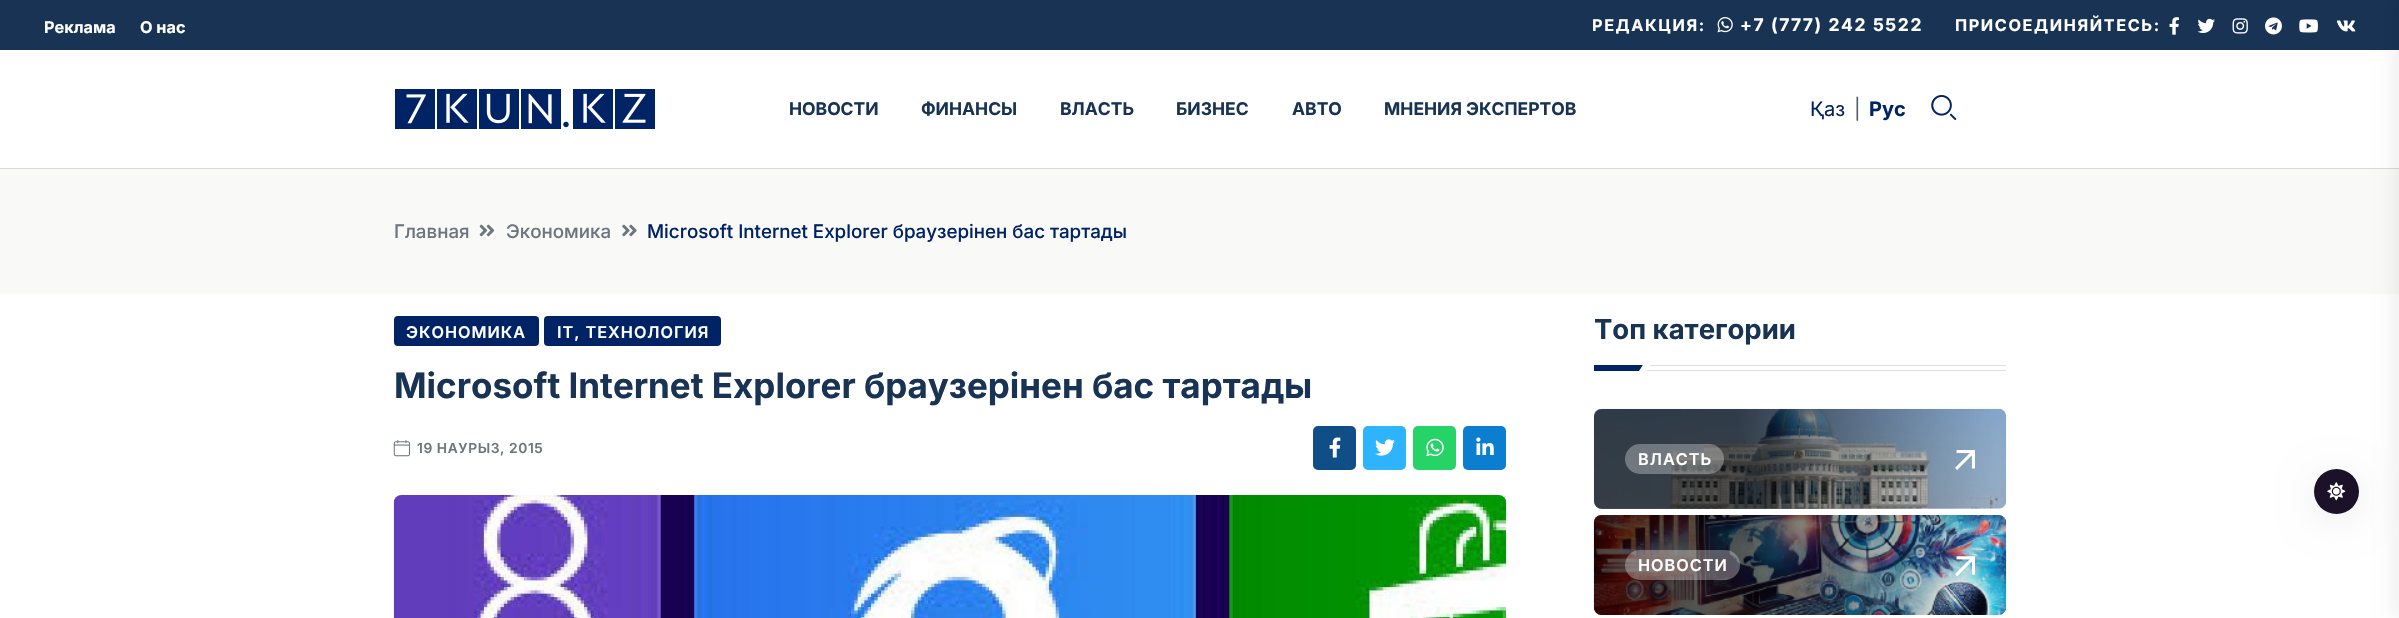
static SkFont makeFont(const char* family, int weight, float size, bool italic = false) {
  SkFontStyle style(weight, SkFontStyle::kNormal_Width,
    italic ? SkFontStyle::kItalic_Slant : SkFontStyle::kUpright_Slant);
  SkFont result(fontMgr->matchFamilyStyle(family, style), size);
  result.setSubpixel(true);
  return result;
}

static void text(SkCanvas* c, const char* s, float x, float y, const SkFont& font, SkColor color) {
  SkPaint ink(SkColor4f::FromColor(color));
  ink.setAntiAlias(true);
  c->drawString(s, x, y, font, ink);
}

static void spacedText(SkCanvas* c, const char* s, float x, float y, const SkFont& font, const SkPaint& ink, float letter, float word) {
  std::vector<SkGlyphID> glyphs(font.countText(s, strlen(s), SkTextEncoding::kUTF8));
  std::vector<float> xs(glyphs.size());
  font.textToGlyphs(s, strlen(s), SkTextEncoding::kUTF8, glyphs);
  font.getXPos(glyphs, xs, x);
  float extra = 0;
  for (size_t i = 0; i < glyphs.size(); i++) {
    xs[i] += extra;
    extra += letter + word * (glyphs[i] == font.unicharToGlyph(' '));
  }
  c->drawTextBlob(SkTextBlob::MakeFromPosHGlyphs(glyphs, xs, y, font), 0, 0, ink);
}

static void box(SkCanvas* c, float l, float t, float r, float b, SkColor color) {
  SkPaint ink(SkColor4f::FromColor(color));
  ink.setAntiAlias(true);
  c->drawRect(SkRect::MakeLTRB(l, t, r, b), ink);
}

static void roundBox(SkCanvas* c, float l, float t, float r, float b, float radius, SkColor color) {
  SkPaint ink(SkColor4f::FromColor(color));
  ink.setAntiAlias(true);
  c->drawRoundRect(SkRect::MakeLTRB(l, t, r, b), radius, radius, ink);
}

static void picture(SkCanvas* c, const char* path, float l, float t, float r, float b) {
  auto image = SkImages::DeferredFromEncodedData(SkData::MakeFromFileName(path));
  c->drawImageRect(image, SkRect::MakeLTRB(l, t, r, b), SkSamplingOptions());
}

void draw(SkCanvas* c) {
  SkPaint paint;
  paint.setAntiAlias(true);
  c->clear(0xffffffff);
  box(c, 0, 0, 2399, 50, 0xff183354);
  SkFont face1 = makeFont("Inter", 700, 16.25f);
  text(c, "Реклама", 44, 33, face1, 0xffffffff);
  text(c, "О нас", 140, 33, face1, 0xffffffff);
  paint.setColor(0xffffffff);
  spacedText(c, "РЕДАКЦИЯ:", 1592, 31, face1, paint, 1.6f, 0);
  picture(c, "img_01.png", 1717, 17, 1733, 33);
  SkFont face2 = makeFont("Inter", 700, 17.5f);
  spacedText(c, "+7 (777) 242 5522", 1740, 31, face2, paint, 1.6f, 0);
  spacedText(c, "ПРИСОЕДИНЯЙТЕСЬ:", 1955, 31, face1, paint, 1.6f, 0);
  picture(c, "img_02.png", 2169, 17, 2179, 35);
  picture(c, "img_03.png", 2197, 18, 2215, 33);
  picture(c, "img_04.png", 2232, 18, 2248, 34);
  picture(c, "img_05.png", 2265, 17, 2282, 35);
  picture(c, "img_06.png", 2299, 19, 2318, 33);
  picture(c, "img_07.png", 2336, 20, 2356, 32);
  box(c, 0, 168, 2399, 169, 0xffd9d9d9);
  picture(c, "img_08.png", 395, 89, 655, 129);
  text(c, "НОВОСТИ", 789, 115, face2, 0xff183354);
  text(c, "ФИНАНСЫ", 921, 115, face2, 0xff183354);
  text(c, "ВЛАСТЬ", 1060, 115, face2, 0xff183354);
  text(c, "БИЗНЕС", 1176, 115, face2, 0xff183354);
  text(c, "АВТО", 1292, 115, face2, 0xff183354);
  text(c, "МНЕНИЯ ЭКСПЕРТОВ", 1384, 115, face2, 0xff183354);
  SkFont face3 = makeFont("Inter", 400, 20);
  text(c, "Қаз", 1810, 116, face3, 0xff002366);
  text(c, "|", 1854, 116, face3, 0xff545e69);
  SkFont face4 = makeFont("Inter", 700, 20);
  text(c, "Рус", 1869, 116, face4, 0xff002366);
  picture(c, "img_09.png", 1931, 95, 1957, 120);
  box(c, 0, 169, 2399, 294, 0xfff9f9f7);
  paint.setColor(0x0f000000);
  paint.setMaskFilter(SkMaskFilter::MakeBlur(kNormal_SkBlurStyle, 9));
  c->drawRect(SkRect::MakeLTRB(2393, 0, 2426, 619), paint);
  paint.setMaskFilter(nullptr);
  SkFont face5 = makeFont("Inter", 500, 18.75f);
  text(c, "Главная", 394, 238, face5, 0xff6d757f);
  picture(c, "img_10.png", 479, 224, 495, 237);
  text(c, "Экономика", 506, 238, face5, 0xff6d757f);
  picture(c, "img_11.png", 622, 224, 637, 237);
  text(c, "Microsoft Internet Explorer браузерінен бас тартады", 647, 238, face5, 0xff002366);
  roundBox(c, 394, 316, 539, 346, 4, 0xff002366);
  SkFont face6 = makeFont("Inter", 600, 16.25f);
  paint.setColor(0xffffffff);
  spacedText(c, "ЭКОНОМИКА", 406, 338, face6, paint, 1, 0);
  roundBox(c, 544, 316, 721, 346, 4, 0xff002366);
  spacedText(c, "IT, ТЕХНОЛОГИЯ", 557, 338, face6, paint, 1, 0);
  SkFont face7 = makeFont("Inter", 700, 35);
  text(c, "Microsoft Internet Explorer браузерінен бас тартады", 394, 398, face7, 0xff183354);
  picture(c, "img_12.png", 393, 440, 410, 457);
  SkFont face8 = makeFont("Inter", 600, 13.75f);
  paint.setColor(0xff6d757f);
  spacedText(c, "19 НАУРЫЗ, 2015", 417, 453, face8, paint, 0.6f, 0);
  roundBox(c, 1313, 426, 1356, 470, 5, 0xff104e87);
  picture(c, "img_13.png", 1329, 437, 1341, 458);
  roundBox(c, 1363, 426, 1406, 470, 5, 0xff2eb4ff);
  picture(c, "img_14.png", 1375, 439, 1395, 456);
  roundBox(c, 1413, 426, 1456, 470, 5, 0xff25d366);
  picture(c, "img_15.png", 1426, 438, 1444, 457);
  roundBox(c, 1463, 426, 1506, 470, 5, 0xff0c7ed0);
  picture(c, "img_16.png", 1476, 437, 1494, 455);
  picture(c, "img_17.png", 393, 495, 1507, 618);
  SkFont face9 = makeFont("Inter", 700, 27.5f);
  text(c, "Топ категории", 1594, 339, face9, 0xff183354);
  box(c, 1649, 365, 2006, 366, 0xffdfdfdf);
  box(c, 1646, 370, 2006, 371, 0xffdfdfdf);
  box(c, 1594, 365, 1644, 371, 0xff002366);
  paint.setColor(0xffffffff);
  c->drawPath(SkPathBuilder().moveTo(1639, 371).lineTo(1643.5f, 364).lineTo(1651, 364).lineTo(1646.5f, 371).close().detach(), paint);
  picture(c, "img_18.png", 1593, 408, 2007, 509);
  {
    const SkColor colors[] = {0xa6000000, 0x00000000};
    const float stops[] = {0.35f, 0.98f};
    const SkPoint ends[] = {{1594, 459}, {2006, 459}};
    paint.setShader(SkGradientShader::MakeLinear(ends, colors, stops, 2, SkTileMode::kClamp));
    paint.setAlpha(255);
  }
  c->drawRoundRect(SkRect::MakeLTRB(1594, 409, 2006, 509), 8, 8, paint);
  roundBox(c, 1625, 444, 1724, 474, 15, 0x4dffffff);
  paint.setShader(nullptr);
  paint.setColor(0xffffffff);
  spacedText(c, "ВЛАСТЬ", 1638, 465, face6, paint, 1, 0);
  picture(c, "img_19.png", 1955, 450, 1975, 470);
  picture(c, "img_20.png", 1593, 515, 2007, 615);
  {
    const SkColor colors[] = {0xa6000000, 0x00000000};
    const float stops[] = {0.35f, 0.98f};
    const SkPoint ends[] = {{1594, 565}, {2006, 565}};
    paint.setShader(SkGradientShader::MakeLinear(ends, colors, stops, 2, SkTileMode::kClamp));
    paint.setAlpha(255);
  }
  c->drawRoundRect(SkRect::MakeLTRB(1594, 515, 2006, 615), 8, 8, paint);
  roundBox(c, 1625, 550, 1740, 580, 15, 0x4dffffff);
  paint.setShader(nullptr);
  paint.setColor(0xffffffff);
  spacedText(c, "НОВОСТИ", 1638, 571, face6, paint, 1, 0);
  picture(c, "img_21.png", 1955, 556, 1975, 576);
  paint.setColor(0x14000000);
  paint.setMaskFilter(SkMaskFilter::MakeBlur(kNormal_SkBlurStyle, 18));
  c->drawRoundRect(SkRect::MakeLTRB(2315, 476, 2358, 520), 21.5f, 21.5f, paint);
  paint.setMaskFilter(nullptr);
  paint.setColor(0xff1b1128);
  c->drawCircle(2336.5f, 491.5f, 22.5f, paint);
  picture(c, "img_22.png", 2327, 482, 2346, 501);
}
